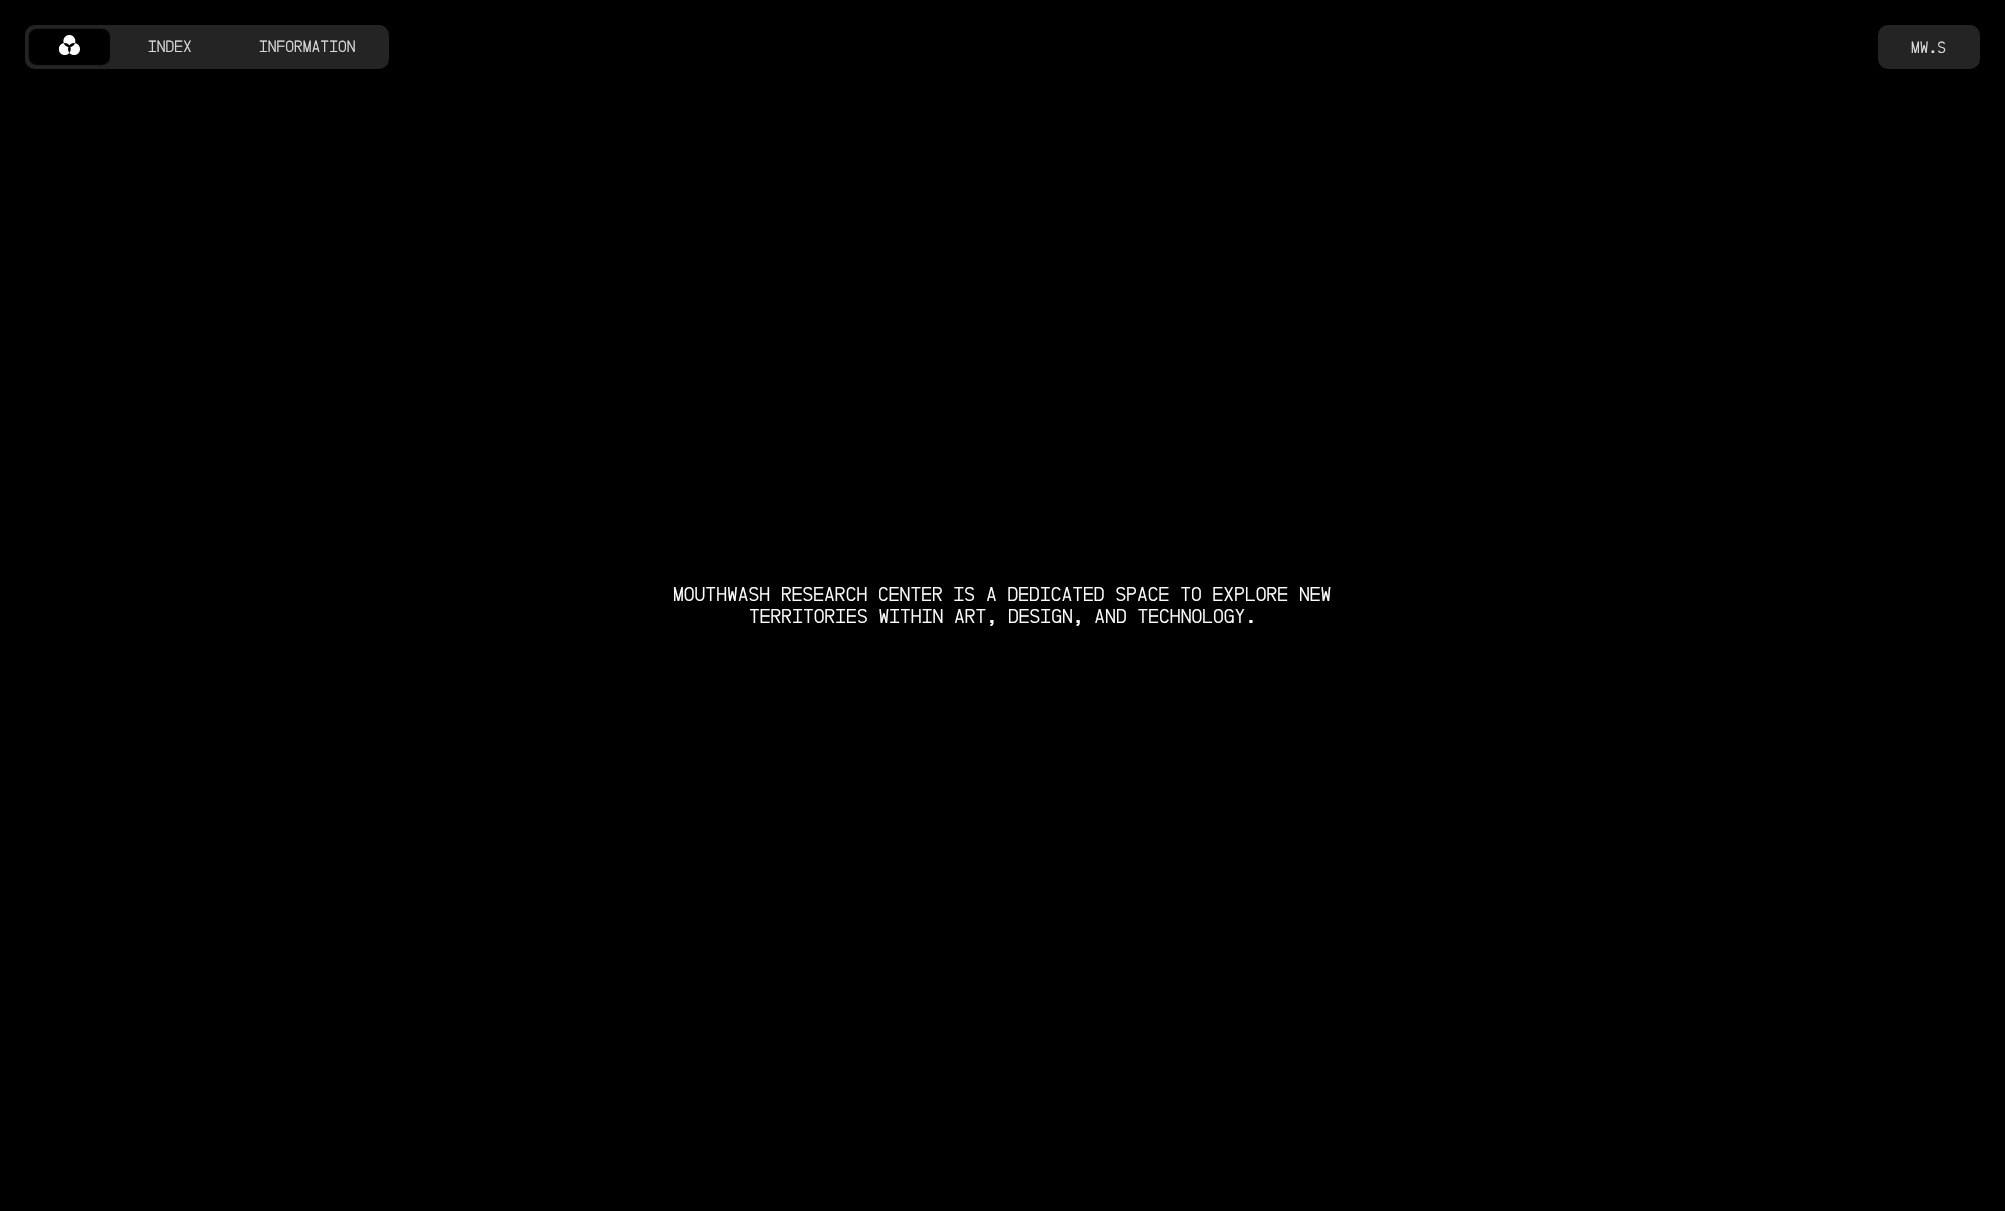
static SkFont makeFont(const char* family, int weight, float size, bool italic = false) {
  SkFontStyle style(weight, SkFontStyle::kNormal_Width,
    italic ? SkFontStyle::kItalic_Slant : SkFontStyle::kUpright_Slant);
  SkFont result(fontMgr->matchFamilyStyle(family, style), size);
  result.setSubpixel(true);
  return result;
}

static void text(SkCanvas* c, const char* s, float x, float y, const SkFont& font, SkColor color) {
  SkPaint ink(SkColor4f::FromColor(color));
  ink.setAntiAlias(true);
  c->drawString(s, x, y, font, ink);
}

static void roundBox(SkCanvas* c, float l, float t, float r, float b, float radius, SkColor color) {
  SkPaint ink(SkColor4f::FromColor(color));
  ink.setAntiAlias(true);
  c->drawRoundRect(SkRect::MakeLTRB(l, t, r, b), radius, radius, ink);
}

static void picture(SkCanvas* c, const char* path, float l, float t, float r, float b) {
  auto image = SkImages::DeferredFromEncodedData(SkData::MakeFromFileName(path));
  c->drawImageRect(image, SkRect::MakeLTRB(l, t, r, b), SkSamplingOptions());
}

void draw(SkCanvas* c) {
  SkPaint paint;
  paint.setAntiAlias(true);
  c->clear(0xff000000);
  roundBox(c, 25, 25, 389, 69, 10, 0xff242424);
  picture(c, "img_01.png", 28, 28, 111, 66);
  picture(c, "img_02.png", 59, 35, 80, 55);
  SkFont face1 = makeFont("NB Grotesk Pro", 400, 16.25f);
  text(c, "INDEX", 148, 52, face1, 0xffdbdbdb);
  text(c, "INFORMATION", 259, 52, face1, 0xffdbdbdb);
  roundBox(c, 1878, 25, 1980, 69, 10, 0xff242424);
  text(c, "MW.S", 1911, 53, face1, 0xffdbdbdb);
  SkFont face2 = makeFont("NB Grotesk Pro", 400, 20);
  text(c, "MOUTHWASH RESEARCH CENTER IS A DEDICATED SPACE TO EXPLORE NEW", 673, 601, face2, 0xffffffff);
  text(c, "TERRITORIES WITHIN ART, DESIGN, AND TECHNOLOGY.", 749, 623, face2, 0xffffffff);
}
